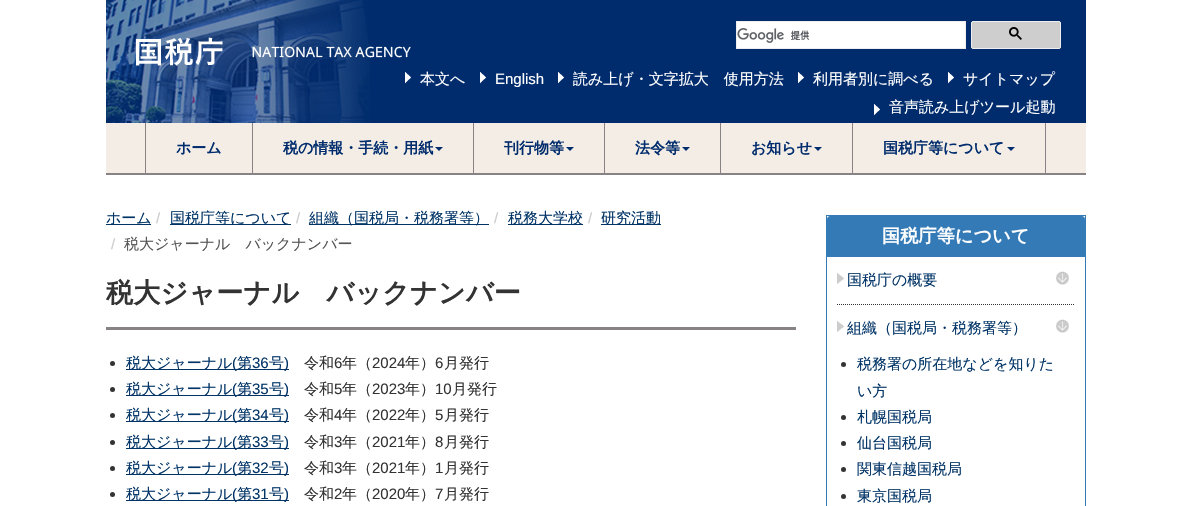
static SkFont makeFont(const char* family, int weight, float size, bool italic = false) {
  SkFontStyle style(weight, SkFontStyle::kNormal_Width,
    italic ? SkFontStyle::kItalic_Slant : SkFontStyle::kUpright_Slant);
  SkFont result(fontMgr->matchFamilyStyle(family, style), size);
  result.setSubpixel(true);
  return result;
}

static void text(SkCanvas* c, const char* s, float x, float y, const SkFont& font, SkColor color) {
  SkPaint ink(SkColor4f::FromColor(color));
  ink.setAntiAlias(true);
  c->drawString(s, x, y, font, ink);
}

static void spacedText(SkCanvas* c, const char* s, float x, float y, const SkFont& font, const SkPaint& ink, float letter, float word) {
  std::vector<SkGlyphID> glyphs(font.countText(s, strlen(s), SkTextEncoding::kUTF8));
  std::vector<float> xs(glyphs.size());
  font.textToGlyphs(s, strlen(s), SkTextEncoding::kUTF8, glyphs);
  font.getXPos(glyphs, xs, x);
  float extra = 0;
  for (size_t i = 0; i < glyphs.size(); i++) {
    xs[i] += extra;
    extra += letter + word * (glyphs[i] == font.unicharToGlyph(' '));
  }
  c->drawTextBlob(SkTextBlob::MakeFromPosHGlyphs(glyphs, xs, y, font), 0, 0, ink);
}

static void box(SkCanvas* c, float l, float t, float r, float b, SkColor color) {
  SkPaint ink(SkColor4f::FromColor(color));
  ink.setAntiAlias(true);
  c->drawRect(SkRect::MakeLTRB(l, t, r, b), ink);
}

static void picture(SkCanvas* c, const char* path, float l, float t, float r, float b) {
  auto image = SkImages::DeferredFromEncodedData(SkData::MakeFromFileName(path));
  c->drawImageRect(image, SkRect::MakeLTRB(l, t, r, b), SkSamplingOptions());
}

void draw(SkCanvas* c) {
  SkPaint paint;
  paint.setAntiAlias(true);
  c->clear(0xffffffff);
  box(c, 370, 0, 1086, 123, 0xff002c6d);
  picture(c, "img_01.png", 106, 0, 370, 123);
  picture(c, "img_02.png", 136, 37, 411, 66);
  paint.setColor(0xffffffff);
  c->drawRect(SkRect::MakeLTRB(736.5f, 21.5f, 965.5f, 48.5f), paint);
  paint.setStyle(SkPaint::kStroke_Style);
  paint.setStrokeWidth(1);
  paint.setColor(0xffeeeeee);
  c->drawRect(SkRect::MakeLTRB(736.5f, 21.5f, 965.5f, 48.5f), paint);
  picture(c, "img_03.png", 737, 28, 810, 43);
  paint.setStyle(SkPaint::kFill_Style);
  paint.setColor(0xffcecece);
  c->drawRoundRect(SkRect::MakeLTRB(971.5f, 21.5f, 1060.5f, 48.5f), 1.5f, 1.5f, paint);
  paint.setStyle(SkPaint::kStroke_Style);
  paint.setColor(0xffeeeeee);
  c->drawRoundRect(SkRect::MakeLTRB(971.5f, 21.5f, 1060.5f, 48.5f), 1.5f, 1.5f, paint);
  picture(c, "img_04.png", 1009, 27, 1022, 40);
  picture(c, "img_05.png", 405, 72, 411, 84);
  SkFont face1 = makeFont("WenQuanYi Zen Hei", 500, 15);
  text(c, "本文へ", 420, 84, face1, 0xffffffff);
  picture(c, "img_05.png", 480, 72, 486, 84);
  SkFont face2 = makeFont("Liberation Sans", 400, 15);
  text(c, "English", 495, 84, face2, 0xffffffff);
  picture(c, "img_05.png", 558, 72, 564, 84);
  text(c, "読み上げ・文字拡大　使用方法", 573, 84, face1, 0xffffffff);
  picture(c, "img_05.png", 798, 72, 804, 84);
  text(c, "利用者別に調べる", 813, 84, face1, 0xffffffff);
  picture(c, "img_05.png", 948, 72, 954, 84);
  text(c, "サイトマップ", 963, 84, face1, 0xffffffff);
  picture(c, "img_06.png", 874, 104, 880, 115);
  text(c, "音声読み上げツール起動", 889, 112, face1, 0xffffffff);
  box(c, 106, 123, 1086, 173, 0xfff3ede5);
  box(c, 106, 173, 1086, 175, 0xff878384);
  box(c, 252, 123, 253, 173, 0xff878384);
  box(c, 145, 123, 146, 173, 0xff878384);
  SkFont face3 = makeFont("WenQuanYi Zen Hei", 700, 15);
  text(c, "ホーム", 176, 153, face3, 0xff002c6d);
  box(c, 473, 123, 474, 173, 0xff878384);
  text(c, "税の情報・手続・用紙", 283, 153, face3, 0xff002c6d);
  paint.setStyle(SkPaint::kFill_Style);
  paint.setColor(0xff002c6d);
  c->drawPath(SkPathBuilder().moveTo(435, 147).lineTo(443, 147).lineTo(439, 151).close().detach(), paint);
  box(c, 604, 123, 605, 173, 0xff878384);
  text(c, "刊行物等", 504, 153, face3, 0xff002c6d);
  c->drawPath(SkPathBuilder().moveTo(566, 147).lineTo(574, 147).lineTo(570, 151).close().detach(), paint);
  box(c, 720, 123, 721, 173, 0xff878384);
  text(c, "法令等", 635, 153, face3, 0xff002c6d);
  c->drawPath(SkPathBuilder().moveTo(682, 147).lineTo(690, 147).lineTo(686, 151).close().detach(), paint);
  box(c, 852, 123, 853, 173, 0xff878384);
  text(c, "お知らせ", 751, 153, face3, 0xff002c6d);
  c->drawPath(SkPathBuilder().moveTo(814, 147).lineTo(822, 147).lineTo(818, 151).close().detach(), paint);
  box(c, 1045, 123, 1046, 173, 0xff878384);
  text(c, "国税庁等について", 883, 153, face3, 0xff002c6d);
  c->drawPath(SkPathBuilder().moveTo(1007, 147).lineTo(1015, 147).lineTo(1011, 151).close().detach(), paint);
  box(c, 106, 224, 151, 225, 0xff003366);
  text(c, "ホーム", 106, 223, face1, 0xff003366);
  text(c, "/", 156, 223, face2, 0xffcccccc);
  box(c, 170, 224, 291, 225, 0xff003366);
  text(c, "国税庁等について", 170, 223, face1, 0xff003366);
  text(c, "/", 296, 223, face2, 0xffcccccc);
  box(c, 309, 224, 489, 225, 0xff003366);
  text(c, "組織（国税局・税務署等）", 309, 223, face1, 0xff003366);
  text(c, "/", 494, 223, face2, 0xffcccccc);
  box(c, 508, 224, 583, 225, 0xff003366);
  text(c, "税務大学校", 508, 223, face1, 0xff003366);
  text(c, "/", 588, 223, face2, 0xffcccccc);
  box(c, 601, 224, 661, 225, 0xff003366);
  text(c, "研究活動", 601, 223, face1, 0xff003366);
  text(c, "/", 111, 249, face2, 0xffcccccc);
  text(c, "税大ジャーナル　バックナンバー", 124, 249, face1, 0xff555555);
  box(c, 106, 327, 796, 330, 0xff878384);
  SkFont face4 = makeFont("WenQuanYi Zen Hei", 700, 27);
  paint.setColor(0xff333333);
  spacedText(c, "税大ジャーナル　バックナンバー", 106, 302, face4, paint, 0.25f, 0);
  c->drawCircle(112.5f, 363.5f, 2.5f, paint);
  box(c, 126, 369, 289, 370, 0xff003366);
  text(c, "税大ジャーナル", 126, 368, face1, 0xff003366);
  text(c, "(", 232, 368, face2, 0xff003366);
  text(c, "第", 237, 368, face1, 0xff003366);
  text(c, "36", 252, 368, face2, 0xff003366);
  text(c, "号", 269, 368, face1, 0xff003366);
  text(c, ")", 284, 368, face2, 0xff003366);
  text(c, "令和", 304, 368, face1, 0xff333333);
  text(c, "6", 334, 368, face2, 0xff333333);
  text(c, "年（", 342, 368, face1, 0xff333333);
  text(c, "2024", 372, 368, face2, 0xff333333);
  text(c, "年）", 405, 368, face1, 0xff333333);
  text(c, "6", 435, 368, face2, 0xff333333);
  text(c, "月発行", 444, 368, face1, 0xff333333);
  c->drawCircle(112.5f, 389.5f, 2.5f, paint);
  box(c, 126, 395, 289, 396, 0xff003366);
  text(c, "税大ジャーナル", 126, 394, face1, 0xff003366);
  text(c, "(", 232, 394, face2, 0xff003366);
  text(c, "第", 237, 394, face1, 0xff003366);
  text(c, "35", 252, 394, face2, 0xff003366);
  text(c, "号", 269, 394, face1, 0xff003366);
  text(c, ")", 284, 394, face2, 0xff003366);
  text(c, "令和", 304, 394, face1, 0xff333333);
  text(c, "5", 334, 394, face2, 0xff333333);
  text(c, "年（", 342, 394, face1, 0xff333333);
  text(c, "2023", 372, 394, face2, 0xff333333);
  text(c, "年）", 405, 394, face1, 0xff333333);
  text(c, "10", 435, 394, face2, 0xff333333);
  text(c, "月発行", 452, 394, face1, 0xff333333);
  c->drawCircle(112.5f, 415.5f, 2.5f, paint);
  box(c, 126, 421, 289, 422, 0xff003366);
  text(c, "税大ジャーナル", 126, 420, face1, 0xff003366);
  text(c, "(", 232, 420, face2, 0xff003366);
  text(c, "第", 237, 420, face1, 0xff003366);
  text(c, "34", 252, 420, face2, 0xff003366);
  text(c, "号", 269, 420, face1, 0xff003366);
  text(c, ")", 284, 420, face2, 0xff003366);
  text(c, "令和", 304, 420, face1, 0xff333333);
  text(c, "4", 334, 420, face2, 0xff333333);
  text(c, "年（", 342, 420, face1, 0xff333333);
  text(c, "2022", 372, 420, face2, 0xff333333);
  text(c, "年）", 405, 420, face1, 0xff333333);
  text(c, "5", 435, 420, face2, 0xff333333);
  text(c, "月発行", 444, 420, face1, 0xff333333);
  c->drawCircle(112.5f, 442.5f, 2.5f, paint);
  box(c, 126, 448, 289, 449, 0xff003366);
  text(c, "税大ジャーナル", 126, 447, face1, 0xff003366);
  text(c, "(", 232, 447, face2, 0xff003366);
  text(c, "第", 237, 447, face1, 0xff003366);
  text(c, "33", 252, 447, face2, 0xff003366);
  text(c, "号", 269, 447, face1, 0xff003366);
  text(c, ")", 284, 447, face2, 0xff003366);
  text(c, "令和", 304, 447, face1, 0xff333333);
  text(c, "3", 334, 447, face2, 0xff333333);
  text(c, "年（", 342, 447, face1, 0xff333333);
  text(c, "2021", 372, 447, face2, 0xff333333);
  text(c, "年）", 405, 447, face1, 0xff333333);
  text(c, "8", 435, 447, face2, 0xff333333);
  text(c, "月発行", 444, 447, face1, 0xff333333);
  c->drawCircle(112.5f, 468.5f, 2.5f, paint);
  box(c, 126, 474, 289, 475, 0xff003366);
  text(c, "税大ジャーナル", 126, 473, face1, 0xff003366);
  text(c, "(", 232, 473, face2, 0xff003366);
  text(c, "第", 237, 473, face1, 0xff003366);
  text(c, "32", 252, 473, face2, 0xff003366);
  text(c, "号", 269, 473, face1, 0xff003366);
  text(c, ")", 284, 473, face2, 0xff003366);
  text(c, "令和", 304, 473, face1, 0xff333333);
  text(c, "3", 334, 473, face2, 0xff333333);
  text(c, "年（", 342, 473, face1, 0xff333333);
  text(c, "2021", 372, 473, face2, 0xff333333);
  text(c, "年）", 405, 473, face1, 0xff333333);
  text(c, "1", 435, 473, face2, 0xff333333);
  text(c, "月発行", 444, 473, face1, 0xff333333);
  c->drawCircle(112.5f, 494.5f, 2.5f, paint);
  box(c, 126, 500, 289, 501, 0xff003366);
  text(c, "税大ジャーナル", 126, 499, face1, 0xff003366);
  text(c, "(", 232, 499, face2, 0xff003366);
  text(c, "第", 237, 499, face1, 0xff003366);
  text(c, "31", 252, 499, face2, 0xff003366);
  text(c, "号", 269, 499, face1, 0xff003366);
  text(c, ")", 284, 499, face2, 0xff003366);
  text(c, "令和", 304, 499, face1, 0xff333333);
  text(c, "2", 334, 499, face2, 0xff333333);
  text(c, "年（", 342, 499, face1, 0xff333333);
  text(c, "2020", 372, 499, face2, 0xff333333);
  text(c, "年）", 405, 499, face1, 0xff333333);
  text(c, "7", 435, 499, face2, 0xff333333);
  text(c, "月発行", 444, 499, face1, 0xff333333);
  paint.setStyle(SkPaint::kStroke_Style);
  paint.setColor(0xff337ab7);
  c->drawRect(SkRect::MakeLTRB(826.5f, 215.5f, 1085.5f, 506.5f), paint);
  paint.setStyle(SkPaint::kFill_Style);
  c->drawPath(SkPathBuilder().moveTo(830, 216).lineTo(1082, 216).cubicTo(1083.5f, 216, 1085, 217.5f, 1085, 219).lineTo(1085, 257).lineTo(827, 257).lineTo(827, 219).cubicTo(827, 217.5f, 828.5f, 216, 830, 216).close().detach(), paint);
  SkFont face5 = makeFont("WenQuanYi Zen Hei", 700, 18);
  paint.setColor(0xffffffff);
  spacedText(c, "国税庁等について", 882, 242, face5, paint, 0.25f, 0);
  picture(c, "img_07.png", 837, 273, 844, 284);
  text(c, "国税庁の概要", 847, 285, face1, 0xff003366);
  picture(c, "img_08.png", 1056, 271, 1069, 285);
  picture(c, "img_07.png", 837, 321, 844, 332);
  paint.setStyle(SkPaint::kStroke_Style);
  paint.setColor(0xff333333);
  paint.setPathEffect(SkDashPathEffect::Make({{1, 1}}, 0));
  c->drawPath(SkPathBuilder().moveTo(837, 304.5f).lineTo(1075, 304.5f).detach(), paint);
  paint.setPathEffect(nullptr);
  text(c, "組織（国税局・税務署等）", 847, 333, face1, 0xff003366);
  picture(c, "img_08.png", 1056, 319, 1069, 333);
  paint.setStyle(SkPaint::kFill_Style);
  c->drawCircle(843.5f, 364.5f, 2.5f, paint);
  text(c, "税務署の所在地などを知りた", 857, 369, face1, 0xff003366);
  text(c, "い方", 857, 396, face1, 0xff003366);
  c->drawCircle(843.5f, 417.5f, 2.5f, paint);
  text(c, "札幌国税局", 857, 422, face1, 0xff003366);
  c->drawCircle(843.5f, 443.5f, 2.5f, paint);
  text(c, "仙台国税局", 857, 448, face1, 0xff003366);
  c->drawCircle(843.5f, 469.5f, 2.5f, paint);
  text(c, "関東信越国税局", 857, 474, face1, 0xff003366);
  c->drawCircle(843.5f, 496.5f, 2.5f, paint);
  text(c, "東京国税局", 857, 501, face1, 0xff003366);
}
